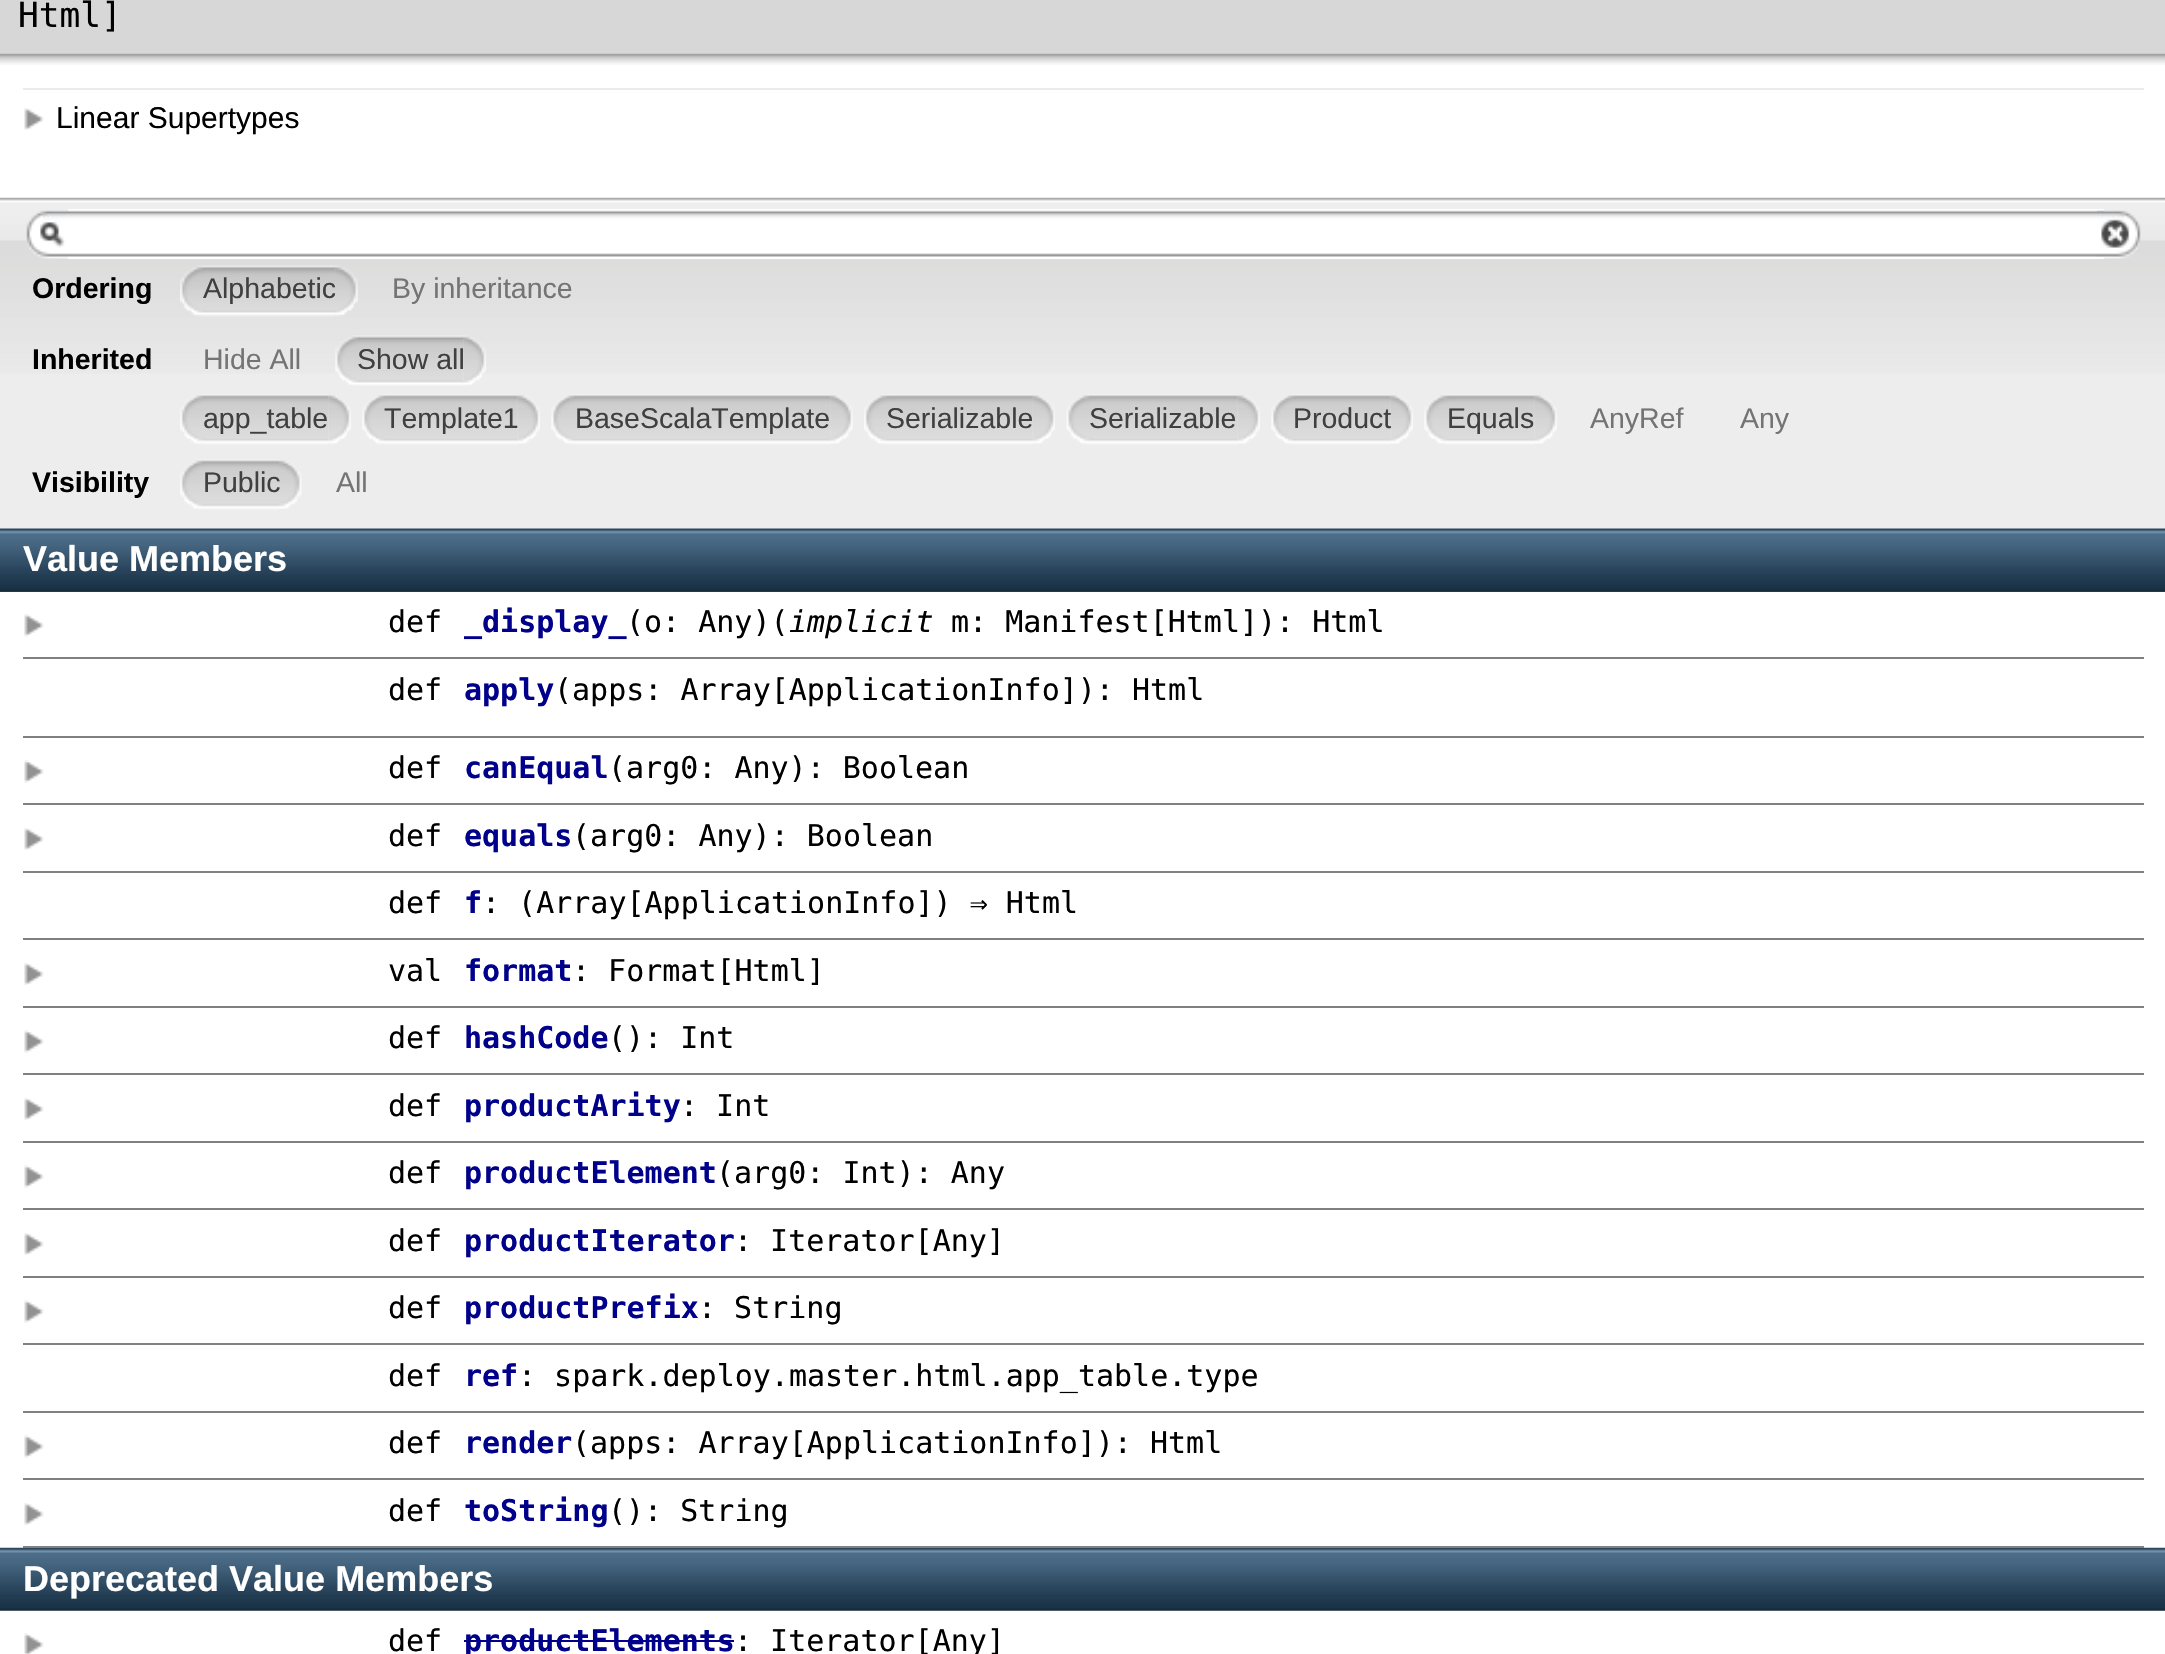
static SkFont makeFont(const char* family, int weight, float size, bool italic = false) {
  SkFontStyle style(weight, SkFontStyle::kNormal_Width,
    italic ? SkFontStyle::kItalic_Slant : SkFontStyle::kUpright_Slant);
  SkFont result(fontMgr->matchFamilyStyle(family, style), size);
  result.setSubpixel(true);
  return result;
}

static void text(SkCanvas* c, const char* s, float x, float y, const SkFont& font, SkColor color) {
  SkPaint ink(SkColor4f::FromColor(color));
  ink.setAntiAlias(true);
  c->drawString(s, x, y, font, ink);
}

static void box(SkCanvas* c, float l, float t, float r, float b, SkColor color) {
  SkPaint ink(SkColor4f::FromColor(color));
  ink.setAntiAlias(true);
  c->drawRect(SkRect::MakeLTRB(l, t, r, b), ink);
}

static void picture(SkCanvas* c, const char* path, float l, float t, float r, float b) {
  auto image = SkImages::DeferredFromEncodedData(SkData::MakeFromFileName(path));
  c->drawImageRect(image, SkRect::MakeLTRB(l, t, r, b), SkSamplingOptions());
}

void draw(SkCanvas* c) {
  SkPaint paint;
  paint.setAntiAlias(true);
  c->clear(0xffffffff);
  box(c, 0, 0, 2165, 54, 0xffd7d7d7);
  SkFont face1 = makeFont("DejaVu Sans Mono", 400, 34.5f);
  text(c, "Html]", 18, 27, face1, 0xff000000);
  picture(c, "img_01.png", 0, 53, 2165, 65);
  box(c, 23, 88, 2144, 90, 0xffebebeb);
  picture(c, "img_02.png", 24, 108, 44, 130);
  SkFont face2 = makeFont("Liberation Sans", 400, 30);
  text(c, "Linear Supertypes", 56, 128, face2, 0xff000000);
  box(c, 0, 374, 2165, 529, 0xffededee);
  picture(c, "img_03.png", 0, 197, 2165, 374);
  picture(c, "img_04.png", 26, 210, 68, 259);
  box(c, 68, 209, 2104, 259, 0xffffffff);
  picture(c, "img_05.png", 67, 210, 2104, 259);
  picture(c, "img_06.png", 2097, 210, 2141, 259);
  SkFont face3 = makeFont("Liberation Sans", 700, 28.5f);
  text(c, "Ordering", 32, 298, face3, 0xff000000);
  picture(c, "img_07.png", 335, 265, 358, 317);
  picture(c, "img_08.png", 180, 265, 336, 317);
  SkFont face4 = makeFont("Liberation Sans", 400, 28.5f);
  text(c, "Alphabetic", 203, 298, face4, 0xff404040);
  text(c, "By inheritance", 392, 298, face4, 0xff747474);
  text(c, "Inherited", 32, 369, face3, 0xff000000);
  text(c, "Hide All", 203, 369, face4, 0xff747474);
  picture(c, "img_09.png", 463, 335, 486, 386);
  picture(c, "img_10.png", 335, 335, 464, 386);
  text(c, "Show all", 357, 369, face4, 0xff404040);
  picture(c, "img_11.png", 328, 395, 351, 444);
  picture(c, "img_12.png", 180, 394, 329, 445);
  text(c, "app_table", 203, 428, face4, 0xff404040);
  picture(c, "img_13.png", 517, 395, 540, 444);
  picture(c, "img_14.png", 362, 394, 518, 445);
  text(c, "Template1", 384, 428, face4, 0xff404040);
  picture(c, "img_15.png", 830, 395, 853, 444);
  picture(c, "img_16.png", 551, 394, 831, 445);
  text(c, "BaseScalaTemplate", 575, 428, face4, 0xff404040);
  picture(c, "img_17.png", 1032, 395, 1055, 444);
  picture(c, "img_18.png", 864, 394, 1033, 445);
  text(c, "Serializable", 886, 428, face4, 0xff404040);
  picture(c, "img_11.png", 1237, 395, 1260, 444);
  picture(c, "img_19.png", 1066, 394, 1238, 445);
  text(c, "Serializable", 1089, 428, face4, 0xff404040);
  picture(c, "img_13.png", 1390, 395, 1413, 444);
  picture(c, "img_20.png", 1271, 394, 1391, 445);
  text(c, "Product", 1293, 428, face4, 0xff404040);
  picture(c, "img_11.png", 1534, 395, 1557, 444);
  picture(c, "img_21.png", 1424, 394, 1535, 445);
  text(c, "Equals", 1447, 428, face4, 0xff404040);
  text(c, "AnyRef", 1590, 428, face4, 0xff747474);
  text(c, "Any", 1740, 428, face4, 0xff747474);
  text(c, "Visibility", 32, 492, face3, 0xff000000);
  picture(c, "img_22.png", 279, 460, 302, 509);
  picture(c, "img_23.png", 180, 459, 279, 510);
  text(c, "Public", 203, 492, face4, 0xff404040);
  text(c, "All", 336, 492, face4, 0xff747474);
  box(c, 0, 591, 2165, 592, 0xff2c475c);
  picture(c, "img_24.png", 0, 528, 2165, 592);
  SkFont face5 = makeFont("Liberation Sans", 700, 36);
  text(c, "Value Members", 23, 571, face5, 0xffffffff);
  box(c, 23, 657, 2144, 659, 0xff808080);
  picture(c, "img_25.png", 24, 614, 44, 637);
  SkFont face6 = makeFont("DejaVu Sans Mono", 400, 30);
  text(c, "def", 388, 632, face6, 0xff000000);
  SkFont face7 = makeFont("DejaVu Sans Mono", 700, 30);
  text(c, "_display_", 464, 632, face7, 0xff00008b);
  text(c, "(o: Any)(", 626, 632, face6, 0xff000000);
  SkFont face8 = makeFont("DejaVu Sans Mono", 400, 30, true);
  text(c, "implicit", 789, 632, face8, 0xff000000);
  text(c, "m: Manifest[Html]): Html", 951, 632, face6, 0xff000000);
  box(c, 23, 736, 2144, 738, 0xff808080);
  text(c, "def", 388, 700, face6, 0xff000000);
  text(c, "apply", 464, 700, face7, 0xff00008b);
  text(c, "(apps: Array[ApplicationInfo]): Html", 554, 700, face6, 0xff000000);
  box(c, 23, 803, 2144, 805, 0xff808080);
  picture(c, "img_26.png", 24, 760, 44, 783);
  text(c, "def", 388, 778, face6, 0xff000000);
  text(c, "canEqual", 464, 778, face7, 0xff00008b);
  text(c, "(arg0: Any): Boolean", 608, 778, face6, 0xff000000);
  box(c, 23, 871, 2144, 873, 0xff808080);
  picture(c, "img_02.png", 24, 828, 44, 850);
  text(c, "def", 388, 846, face6, 0xff000000);
  text(c, "equals", 464, 846, face7, 0xff00008b);
  text(c, "(arg0: Any): Boolean", 572, 846, face6, 0xff000000);
  box(c, 23, 938, 2144, 940, 0xff808080);
  text(c, "def", 388, 913, face6, 0xff000000);
  text(c, "f", 464, 913, face7, 0xff00008b);
  text(c, ": (Array[ApplicationInfo]) ⇒ Html", 482, 913, face6, 0xff000000);
  box(c, 23, 1006, 2144, 1008, 0xff808080);
  picture(c, "img_02.png", 24, 963, 44, 985);
  text(c, "val", 388, 981, face6, 0xff000000);
  text(c, "format", 464, 981, face7, 0xff00008b);
  text(c, ": Format[Html]", 572, 981, face6, 0xff000000);
  box(c, 23, 1073, 2144, 1075, 0xff808080);
  picture(c, "img_26.png", 24, 1030, 44, 1053);
  text(c, "def", 388, 1048, face6, 0xff000000);
  text(c, "hashCode", 464, 1048, face7, 0xff00008b);
  text(c, "(): Int", 608, 1048, face6, 0xff000000);
  box(c, 23, 1141, 2144, 1143, 0xff808080);
  picture(c, "img_02.png", 24, 1098, 44, 1120);
  text(c, "def", 388, 1116, face6, 0xff000000);
  text(c, "productArity", 464, 1116, face7, 0xff00008b);
  text(c, ": Int", 680, 1116, face6, 0xff000000);
  box(c, 23, 1208, 2144, 1210, 0xff808080);
  picture(c, "img_26.png", 24, 1165, 44, 1188);
  text(c, "def", 388, 1183, face6, 0xff000000);
  text(c, "productElement", 464, 1183, face7, 0xff00008b);
  text(c, "(arg0: Int): Any", 716, 1183, face6, 0xff000000);
  box(c, 23, 1276, 2144, 1278, 0xff808080);
  picture(c, "img_02.png", 24, 1233, 44, 1255);
  text(c, "def", 388, 1251, face6, 0xff000000);
  text(c, "productIterator", 464, 1251, face7, 0xff00008b);
  text(c, ": Iterator[Any]", 734, 1251, face6, 0xff000000);
  box(c, 23, 1343, 2144, 1345, 0xff808080);
  picture(c, "img_26.png", 24, 1300, 44, 1323);
  text(c, "def", 388, 1318, face6, 0xff000000);
  text(c, "productPrefix", 464, 1318, face7, 0xff00008b);
  text(c, ": String", 698, 1318, face6, 0xff000000);
  box(c, 23, 1411, 2144, 1413, 0xff808080);
  text(c, "def", 388, 1386, face6, 0xff000000);
  text(c, "ref", 464, 1386, face7, 0xff00008b);
  text(c, ": spark.deploy.master.html.app_table.type", 518, 1386, face6, 0xff000000);
  box(c, 23, 1478, 2144, 1480, 0xff808080);
  picture(c, "img_27.png", 24, 1435, 44, 1458);
  text(c, "def", 388, 1453, face6, 0xff000000);
  text(c, "render", 464, 1453, face7, 0xff00008b);
  text(c, "(apps: Array[ApplicationInfo]): Html", 572, 1453, face6, 0xff000000);
  picture(c, "img_28.png", 0, 1547, 2165, 1611);
  box(c, 23, 1546, 2144, 1548, 0xff808080);
  picture(c, "img_02.png", 24, 1503, 44, 1525);
  text(c, "def", 388, 1521, face6, 0xff000000);
  text(c, "toString", 464, 1521, face7, 0xff00008b);
  text(c, "(): String", 608, 1521, face6, 0xff000000);
  text(c, "Deprecated Value Members", 23, 1591, face5, 0xffffffff);
  picture(c, "img_29.png", 24, 1633, 44, 1654);
  text(c, "def", 388, 1651, face6, 0xff000000);
  text(c, "productElements", 464, 1651, face7, 0xff00008b);
  box(c, 464, 1640, 734, 1642, 0xff00008b);
  text(c, ": Iterator[Any]", 734, 1651, face6, 0xff000000);
}
